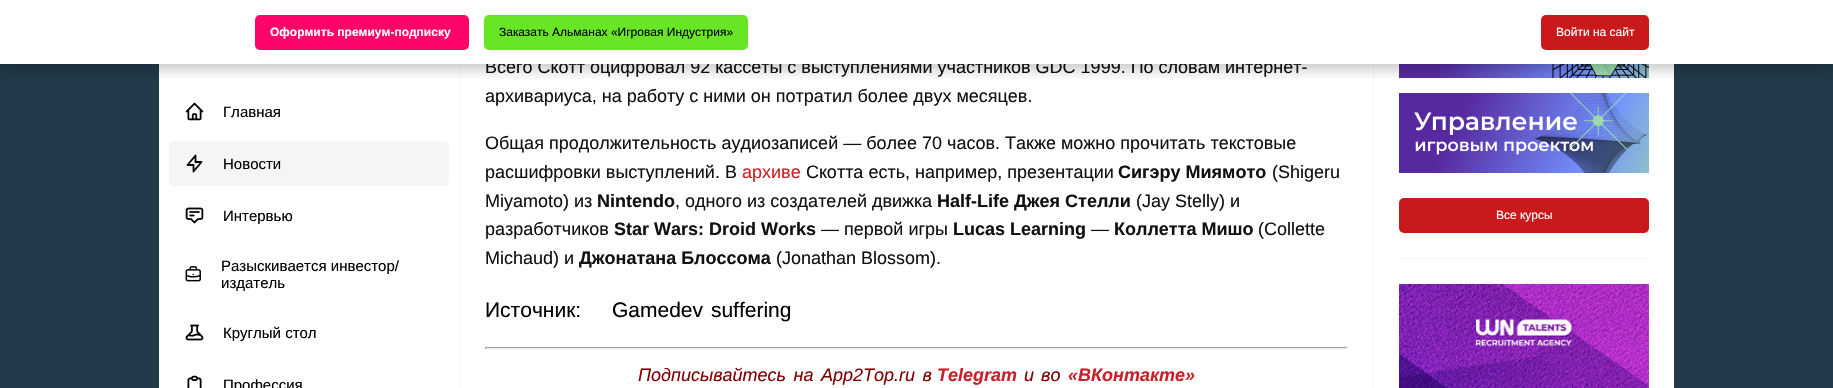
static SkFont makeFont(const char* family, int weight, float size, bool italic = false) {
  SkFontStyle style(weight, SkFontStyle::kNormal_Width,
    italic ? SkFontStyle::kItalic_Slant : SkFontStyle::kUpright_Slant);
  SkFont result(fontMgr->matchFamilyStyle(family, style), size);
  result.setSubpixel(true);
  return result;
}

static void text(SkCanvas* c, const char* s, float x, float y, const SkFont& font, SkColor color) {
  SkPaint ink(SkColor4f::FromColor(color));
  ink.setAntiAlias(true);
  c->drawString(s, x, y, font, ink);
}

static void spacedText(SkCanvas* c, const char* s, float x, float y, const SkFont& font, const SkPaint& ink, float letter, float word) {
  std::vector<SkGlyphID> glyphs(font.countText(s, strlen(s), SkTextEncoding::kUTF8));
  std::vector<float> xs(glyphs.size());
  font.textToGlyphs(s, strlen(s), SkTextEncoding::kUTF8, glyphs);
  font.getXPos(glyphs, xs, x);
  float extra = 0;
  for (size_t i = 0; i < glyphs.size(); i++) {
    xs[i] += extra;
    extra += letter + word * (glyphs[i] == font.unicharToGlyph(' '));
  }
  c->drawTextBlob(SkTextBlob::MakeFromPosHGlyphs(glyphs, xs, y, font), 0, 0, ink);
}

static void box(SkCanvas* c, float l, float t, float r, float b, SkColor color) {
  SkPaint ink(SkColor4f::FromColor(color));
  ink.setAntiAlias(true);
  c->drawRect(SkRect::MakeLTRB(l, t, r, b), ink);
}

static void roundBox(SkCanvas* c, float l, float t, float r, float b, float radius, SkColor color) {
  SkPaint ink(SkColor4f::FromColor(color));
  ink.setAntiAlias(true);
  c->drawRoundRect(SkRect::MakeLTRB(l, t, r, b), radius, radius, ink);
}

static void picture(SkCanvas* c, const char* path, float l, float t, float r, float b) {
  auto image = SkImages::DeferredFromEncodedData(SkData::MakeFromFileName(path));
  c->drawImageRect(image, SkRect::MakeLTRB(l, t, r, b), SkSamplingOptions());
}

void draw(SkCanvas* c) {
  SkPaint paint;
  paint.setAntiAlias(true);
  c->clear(0xff213948);
  box(c, 159, 64, 1674, 388, 0xffffffff);
  SkFont face1 = makeFont("Liberation Sans", 400, 18);
  text(c, "Всего Скотт оцифровал 92 кассеты с выступлениями участников GDC 1999. По словам интернет-", 485, 73, face1, 0xff111111);
  box(c, 0, 0, 1833, 64, 0xffffffff);
  box(c, 459, 64, 460, 388, 0xfff5f5f5);
  box(c, 1373, 64, 1374, 388, 0xfff5f5f5);
  picture(c, "img_06.png", 1399, 64, 1649, 78);
  c->save();
  c->clipRect(SkRect::MakeLTRB(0, 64, 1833, 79));
  paint.setColor(0x40000000);
  paint.setMaskFilter(SkMaskFilter::MakeBlur(kNormal_SkBlurStyle, 7.5f));
  c->drawRect(SkRect::MakeLTRB(0, 4, 1833, 68), paint);
  paint.setMaskFilter(nullptr);
  c->restore();
  roundBox(c, 255, 15, 469, 50, 5, 0xffff0569);
  SkFont face2 = makeFont("Liberation Sans", 700, 12);
  text(c, "Оформить премиум-подписку", 270, 36, face2, 0xffffffff);
  roundBox(c, 484, 15, 748, 50, 5, 0xff68e524);
  SkFont face3 = makeFont("Liberation Sans", 400, 12);
  text(c, "Заказать Альманах «Игровая Индустрия»", 499, 36, face3, 0xff000000);
  roundBox(c, 1541, 15, 1649, 50, 5, 0xffca191d);
  text(c, "Войти на сайт", 1556, 36, face3, 0xffffffff);
  picture(c, "img_01.png", 185, 102, 204, 121);
  SkFont face4 = makeFont("Liberation Sans", 400, 15);
  text(c, "Главная", 223, 117, face4, 0xff000000);
  roundBox(c, 169, 141, 449, 186, 5, 0xfff5f5f5);
  paint.setStyle(SkPaint::kStroke_Style);
  paint.setStrokeWidth(1.8f);
  paint.setStrokeCap(SkPaint::kRound_Cap);
  paint.setStrokeJoin(SkPaint::kRound_Join);
  paint.setColor(0xff000000);
  c->drawPath(SkPathBuilder().moveTo(195.5f, 155.5f).lineTo(195.5f, 162).lineTo(201.5f, 162).lineTo(193.5f, 171.5f).lineTo(193.5f, 165).lineTo(187.5f, 165).close().detach(), paint);
  text(c, "Новости", 223, 169, face4, 0xff000000);
  picture(c, "img_02.png", 185, 207, 204, 224);
  text(c, "Интервью", 223, 221, face4, 0xff000000);
  picture(c, "img_03.png", 185, 266, 201, 282);
  text(c, "Разыскивается инвестор/", 221, 271, face4, 0xff000000);
  text(c, "издатель", 221, 288, face4, 0xff000000);
  picture(c, "img_04.png", 185, 324, 204, 341);
  text(c, "Круглый стол", 223, 338, face4, 0xff000000);
  picture(c, "img_05.png", 187, 375, 202, 388);
  text(c, "Профессия", 223, 390, face4, 0xff000000);
  text(c, "архивариуса, на работу с ними он потратил более двух месяцев.", 485, 102, face1, 0xff111111);
  text(c, "Общая продолжительность аудиозаписей — более 70 часов. Также можно прочитать текстовые", 485, 149, face1, 0xff111111);
  text(c, "расшифровки выступлений. В", 485, 178, face1, 0xff111111);
  text(c, "архиве", 742, 178, face1, 0xffc92128);
  text(c, "Скотта есть, например, презентации", 806, 178, face1, 0xff111111);
  SkFont face5 = makeFont("Liberation Sans", 700, 18);
  text(c, "Сигэру Миямото", 1118, 178, face5, 0xff111111);
  text(c, "(Shigeru", 1272, 178, face1, 0xff111111);
  text(c, "Miyamoto) из", 485, 207, face1, 0xff111111);
  text(c, "Nintendo", 597, 207, face5, 0xff111111);
  text(c, ", одного из создателей движка", 675, 207, face1, 0xff111111);
  text(c, "Half-Life Джея Стелли", 937, 207, face5, 0xff111111);
  text(c, "(Jay Stelly) и", 1136, 207, face1, 0xff111111);
  text(c, "разработчиков", 485, 235, face1, 0xff111111);
  text(c, "Star Wars: Droid Works", 614, 235, face5, 0xff111111);
  text(c, "— первой игры", 821, 235, face1, 0xff111111);
  text(c, "Lucas Learning", 953, 235, face5, 0xff111111);
  text(c, "—", 1091, 235, face1, 0xff111111);
  text(c, "Коллетта Мишо", 1114, 235, face5, 0xff111111);
  text(c, "(Collette", 1258, 235, face1, 0xff111111);
  text(c, "Michaud) и", 485, 264, face1, 0xff111111);
  text(c, "Джонатана Блоссома", 579, 264, face5, 0xff111111);
  text(c, "(Jonathan Blossom).", 776, 264, face1, 0xff111111);
  SkFont face6 = makeFont("Liberation Sans", 400, 21);
  text(c, "Источник:", 485, 317, face6, 0xff000000);
  paint.setStyle(SkPaint::kFill_Style);
  spacedText(c, "Gamedev suffering", 612, 317, face6, paint, 0, 2);
  box(c, 485, 347, 1348, 348, 0xff9f9f9f);
  box(c, 1347, 347, 1348, 349, 0xffeeeeee);
  box(c, 485, 348, 1348, 349, 0xffeeeeee);
  box(c, 485, 347, 486, 349, 0xff9f9f9f);
  SkFont face7 = makeFont("Liberation Sans", 400, 18, true);
  paint.setColor(0xff800000);
  spacedText(c, "Подписывайтесь на App2Top.ru в", 638, 381, face7, paint, 0, 2.5f);
  SkFont face8 = makeFont("Liberation Sans", 700, 18, true);
  text(c, "Telegram", 937, 381, face8, 0xffc92128);
  spacedText(c, "и во", 1024, 381, face7, paint, 0, 2);
  text(c, "«ВКонтакте»", 1068, 381, face8, 0xffc92128);
  picture(c, "img_07.png", 1399, 93, 1649, 173);
  roundBox(c, 1399, 198, 1649, 233, 5, 0xffca191d);
  text(c, "Все курсы", 1496, 219, face3, 0xffffffff);
  box(c, 1399, 258, 1649, 259, 0xfff5f5f5);
  picture(c, "img_08.png", 1399, 284, 1649, 388);
}
